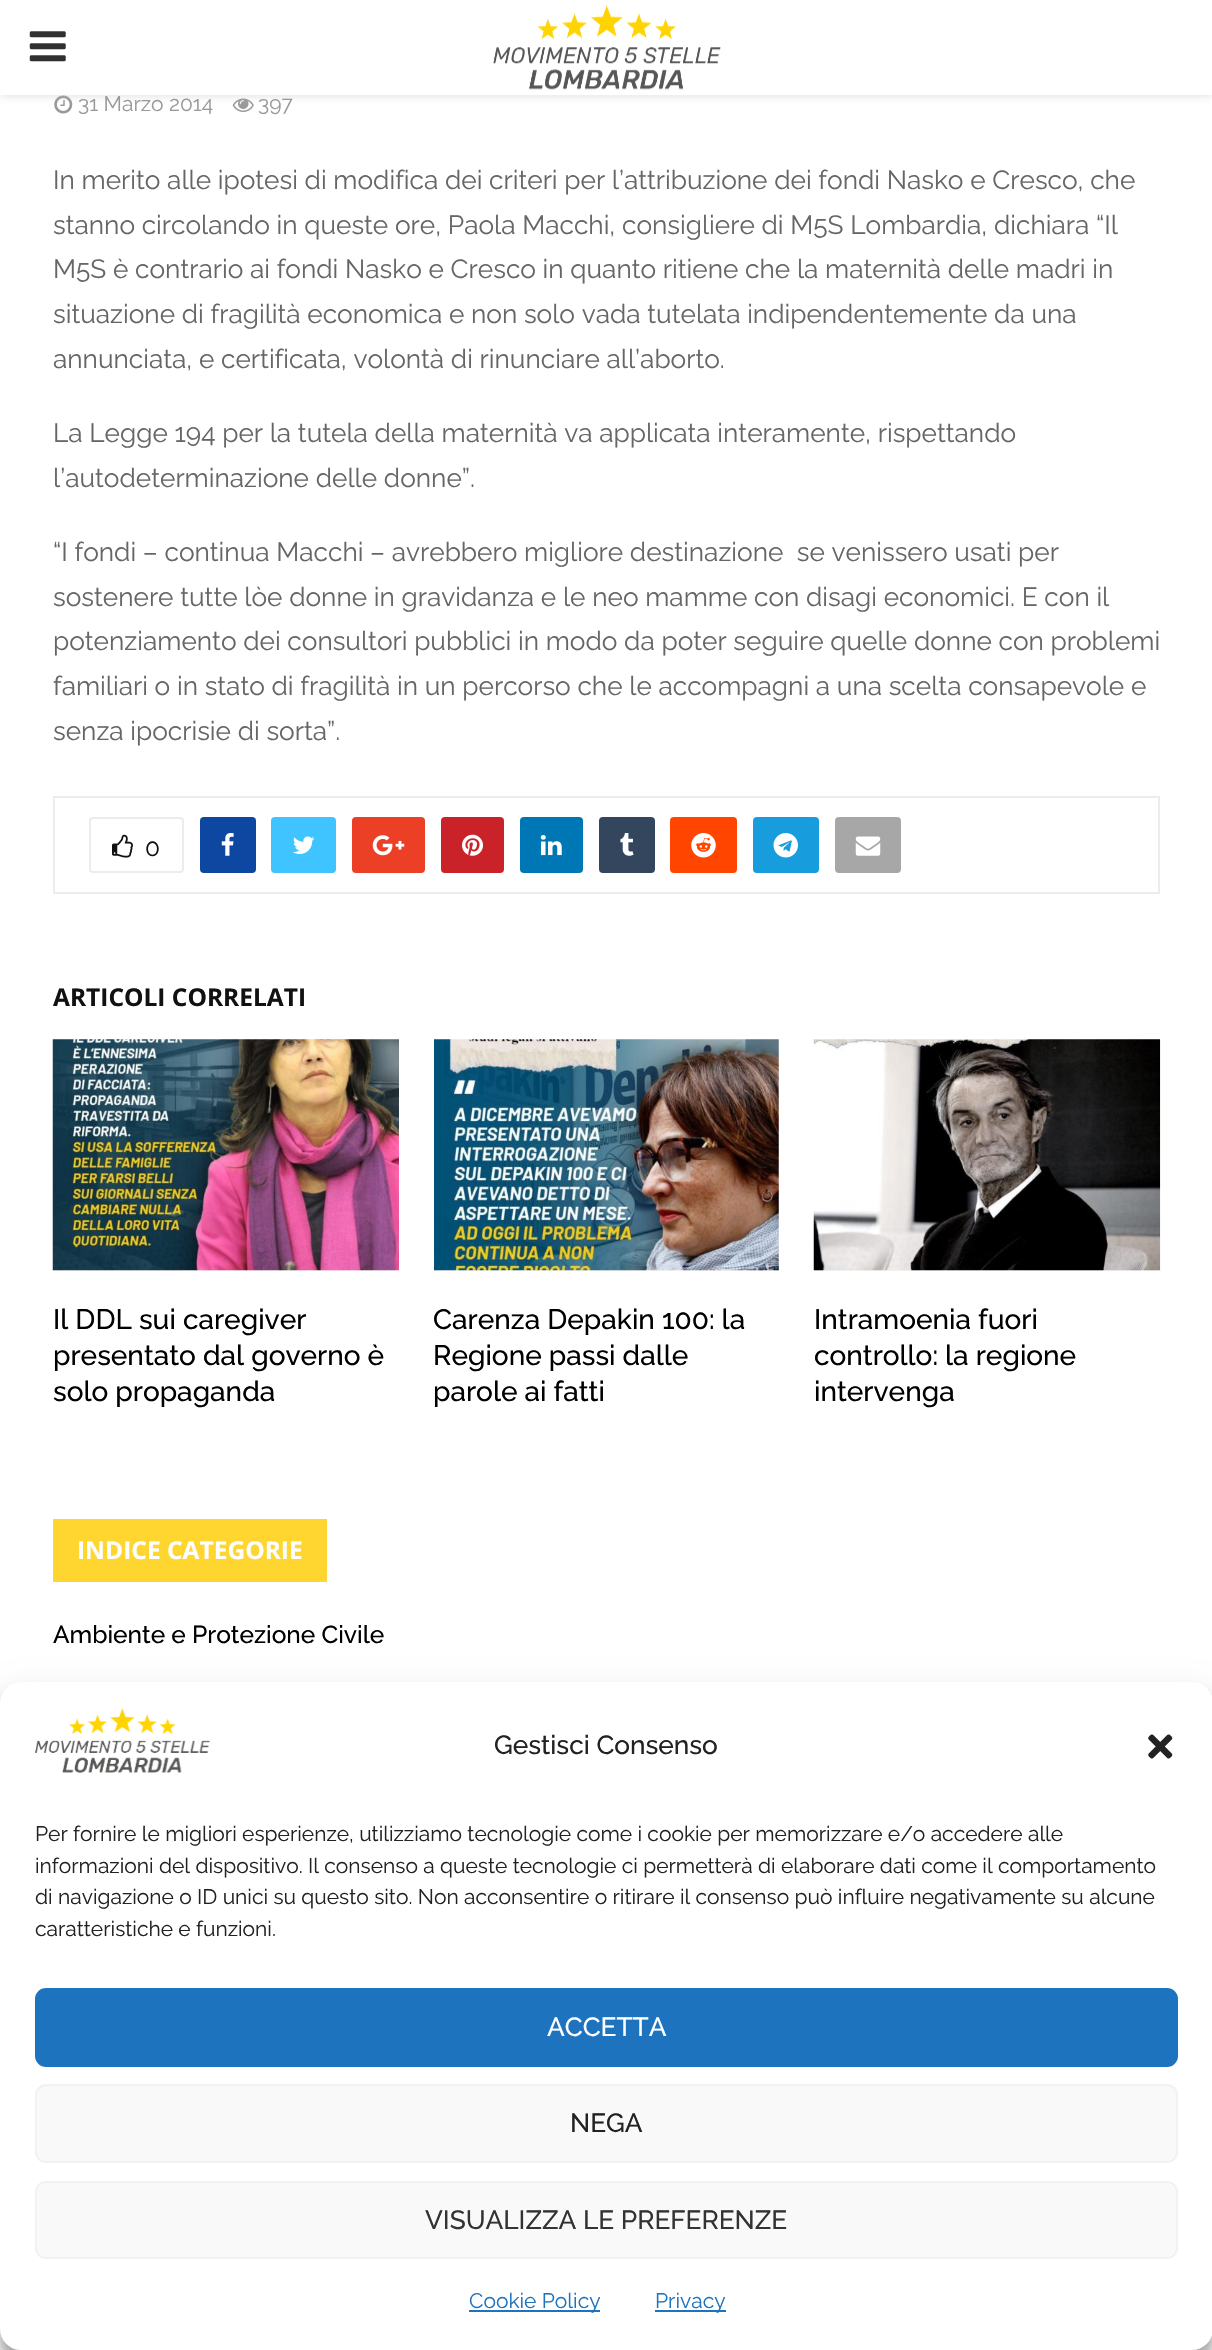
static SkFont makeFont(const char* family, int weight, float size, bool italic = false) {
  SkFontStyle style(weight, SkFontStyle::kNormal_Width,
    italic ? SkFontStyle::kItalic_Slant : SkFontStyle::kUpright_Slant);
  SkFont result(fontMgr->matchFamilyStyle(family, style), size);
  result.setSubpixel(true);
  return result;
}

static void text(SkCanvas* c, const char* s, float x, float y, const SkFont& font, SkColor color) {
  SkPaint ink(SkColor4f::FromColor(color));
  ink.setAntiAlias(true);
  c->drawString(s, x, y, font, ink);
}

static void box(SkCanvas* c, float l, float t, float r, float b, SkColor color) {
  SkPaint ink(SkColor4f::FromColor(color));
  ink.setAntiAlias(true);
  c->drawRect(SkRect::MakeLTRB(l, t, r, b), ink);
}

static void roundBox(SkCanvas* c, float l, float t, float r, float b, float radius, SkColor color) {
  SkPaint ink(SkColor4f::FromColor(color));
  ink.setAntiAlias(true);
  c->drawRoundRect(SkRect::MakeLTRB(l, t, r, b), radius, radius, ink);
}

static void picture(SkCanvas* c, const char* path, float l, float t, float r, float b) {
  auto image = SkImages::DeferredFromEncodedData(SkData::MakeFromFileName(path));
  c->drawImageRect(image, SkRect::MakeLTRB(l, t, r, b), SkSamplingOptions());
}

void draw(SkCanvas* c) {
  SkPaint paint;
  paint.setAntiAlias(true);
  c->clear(0xffffffff);
  picture(c, "img_03.png", 54, 95, 73, 114);
  picture(c, "img_04.png", 232, 98, 254, 112);
  paint.setColor(0x75bebebe);
  paint.setMaskFilter(SkMaskFilter::MakeBlur(kNormal_SkBlurStyle, 4.5f));
  c->drawRect(SkRect::MakeLTRB(0, 2, 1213, 96), paint);
  paint.setMaskFilter(nullptr);
  box(c, 0, 0, 1212, 95, 0xffffffff);
  picture(c, "img_01.png", 29, 31, 66, 62);
  picture(c, "img_02.png", 493, 5, 721, 90);
  SkFont face1 = makeFont("Raleway", 400, 21);
  text(c, "31 Marzo 2014", 78, 111, face1, 0xff999999);
  text(c, "397", 258, 111, face1, 0xff999999);
  SkFont face2 = makeFont("Raleway", 400, 26.25f);
  text(c, "In merito alle ipotesi di modifica dei criteri per l’attribuzione dei fondi Nasko e Cresco, che", 53, 189, face2, 0xff666666);
  text(c, "stanno circolando in queste ore, Paola Macchi, consigliere di M5S Lombardia, dichiara “Il", 53, 234, face2, 0xff666666);
  text(c, "M5S è contrario ai fondi Nasko e Cresco in quanto ritiene che la maternità delle madri in", 53, 278, face2, 0xff666666);
  text(c, "situazione di fragilità economica e non solo vada tutelata indipendentemente da una", 53, 323, face2, 0xff666666);
  text(c, "annunciata, e certificata, volontà di rinunciare all’aborto.", 53, 368, face2, 0xff666666);
  text(c, "La Legge 194 per la tutela della maternità va applicata interamente, rispettando", 53, 442, face2, 0xff666666);
  text(c, "l’autodeterminazione delle donne”.", 53, 487, face2, 0xff666666);
  text(c, "“I fondi – continua Macchi – avrebbero migliore destinazione  se venissero usati per", 53, 561, face2, 0xff666666);
  text(c, "sostenere tutte lòe donne in gravidanza e le neo mamme con disagi economici. E con il", 53, 606, face2, 0xff666666);
  text(c, "potenziamento dei consultori pubblici in modo da poter seguire quelle donne con problemi", 53, 650, face2, 0xff666666);
  text(c, "familiari o in stato di fragilità in un percorso che le accompagni a una scelta consapevole e", 53, 695, face2, 0xff666666);
  text(c, "senza ipocrisie di sorta”.", 53, 740, face2, 0xff666666);
  paint.setStyle(SkPaint::kStroke_Style);
  paint.setStrokeWidth(2);
  paint.setColor(0xffececec);
  c->drawRect(SkRect::MakeLTRB(54, 797, 1159, 893), paint);
  c->drawRoundRect(SkRect::MakeLTRB(90, 818, 183, 872), 3, 3, paint);
  picture(c, "img_05.png", 112, 834, 133, 858);
  SkFont face3 = makeFont("Raleway", 400, 24.5f);
  text(c, "0", 145, 856, face3, 0xff111111);
  roundBox(c, 200, 817, 256, 873, 4, 0xff0d47a1);
  picture(c, "img_06.png", 221, 833, 234, 856);
  roundBox(c, 271, 817, 336, 873, 4, 0xff40c4ff);
  picture(c, "img_07.png", 293, 836, 315, 854);
  roundBox(c, 352, 817, 425, 873, 4, 0xffeb4026);
  picture(c, "img_08.png", 372, 835, 405, 856);
  roundBox(c, 441, 817, 504, 873, 4, 0xffc92228);
  picture(c, "img_09.png", 462, 834, 483, 856);
  roundBox(c, 520, 817, 583, 873, 4, 0xff0077b5);
  picture(c, "img_10.png", 540, 835, 562, 856);
  roundBox(c, 599, 817, 655, 873, 4, 0xff34465d);
  picture(c, "img_11.png", 620, 833, 634, 856);
  roundBox(c, 670, 817, 737, 873, 4, 0xffff4500);
  picture(c, "img_12.png", 691, 833, 716, 858);
  roundBox(c, 753, 817, 819, 873, 4, 0xff179cde);
  picture(c, "img_13.png", 773, 833, 798, 858);
  roundBox(c, 835, 817, 901, 873, 4, 0xffa7a7a7);
  picture(c, "img_14.png", 855, 836, 881, 856);
  SkFont face4 = makeFont("Open Sans", 700, 24.5f);
  text(c, "ARTICOLI CORRELATI", 53, 1006, face4, 0xff111111);
  box(c, 53, 1270, 399, 1271, 0xfff5f5f5);
  picture(c, "img_15.png", 52, 1039, 399, 1271);
  SkFont face5 = makeFont("Raleway", 500, 28);
  text(c, "Il DDL sui caregiver", 53, 1329, face5, 0xff000000);
  text(c, "presentato dal governo è", 53, 1365, face5, 0xff000000);
  text(c, "solo propaganda", 53, 1401, face5, 0xff000000);
  box(c, 434, 1040, 779, 1271, 0xfff5f5f5);
  picture(c, "img_16.png", 434, 1039, 779, 1271);
  text(c, "Carenza Depakin 100: la", 433, 1329, face5, 0xff000000);
  text(c, "Regione passi dalle", 433, 1365, face5, 0xff000000);
  text(c, "parole ai fatti", 433, 1401, face5, 0xff000000);
  box(c, 814, 1270, 1160, 1271, 0xfff5f5f5);
  picture(c, "img_17.png", 813, 1039, 1161, 1271);
  text(c, "Intramoenia fuori", 814, 1329, face5, 0xff000000);
  text(c, "controllo: la regione", 814, 1365, face5, 0xff000000);
  text(c, "intervenga", 814, 1401, face5, 0xff000000);
  box(c, 53, 1519, 327, 1582, 0xffffd530);
  text(c, "INDICE CATEGORIE", 77, 1559, face4, 0xffffffff);
  SkFont face6 = makeFont("Raleway", 500, 24.5f);
  text(c, "Ambiente e Protezione Civile", 53, 1643, face6, 0xff000000);
  paint.setStyle(SkPaint::kFill_Style);
  paint.setColor(0x3b000000);
  paint.setMaskFilter(SkMaskFilter::MakeBlur(kNormal_SkBlurStyle, 5));
  c->drawRoundRect(SkRect::MakeLTRB(0, 1692, 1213, 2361), 21, 21, paint);
  paint.setMaskFilter(nullptr);
  paint.setColor(0x30000000);
  paint.setMaskFilter(SkMaskFilter::MakeBlur(kNormal_SkBlurStyle, 17.5f));
  c->drawRoundRect(SkRect::MakeLTRB(0, 1699, 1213, 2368), 21, 21, paint);
  paint.setMaskFilter(nullptr);
  roundBox(c, 0, 1682, 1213, 2350, 21, 0xffffffff);
  picture(c, "img_18.png", 35, 1708, 210, 1773);
  SkFont face7 = makeFont("Raleway", 500, 26.25f);
  text(c, "Gestisci Consenso", 494, 1754, face7, 0xff222222);
  picture(c, "img_19.png", 1148, 1734, 1173, 1759);
  text(c, "Per fornire le migliori esperienze, utilizziamo tecnologie come i cookie per memorizzare e/o accedere alle", 35, 1841, face1, 0xff222222);
  text(c, "informazioni del dispositivo. Il consenso a queste tecnologie ci permetterà di elaborare dati come il comportamento", 35, 1873, face1, 0xff222222);
  text(c, "di navigazione o ID unici su questo sito. Non acconsentire o ritirare il consenso può influire negativamente su alcune", 35, 1904, face1, 0xff222222);
  text(c, "caratteristiche e funzioni.", 35, 1936, face1, 0xff222222);
  paint.setColor(0xff1e73be);
  c->drawRoundRect(SkRect::MakeLTRB(36, 1989, 1177, 2066), 10, 10, paint);
  paint.setStyle(SkPaint::kStroke_Style);
  c->drawRoundRect(SkRect::MakeLTRB(36, 1989, 1177, 2066), 10, 10, paint);
  text(c, "ACCETTA", 547, 2036, face7, 0xffffffff);
  paint.setStyle(SkPaint::kFill_Style);
  paint.setColor(0xfff9f9f9);
  c->drawRoundRect(SkRect::MakeLTRB(36, 2085, 1177, 2162), 10, 10, paint);
  paint.setStyle(SkPaint::kStroke_Style);
  paint.setColor(0xfff2f2f2);
  c->drawRoundRect(SkRect::MakeLTRB(36, 2085, 1177, 2162), 10, 10, paint);
  text(c, "NEGA", 570, 2132, face7, 0xff222222);
  paint.setStyle(SkPaint::kFill_Style);
  paint.setColor(0xfff9f9f9);
  c->drawRoundRect(SkRect::MakeLTRB(36, 2182, 1177, 2258), 10, 10, paint);
  paint.setStyle(SkPaint::kStroke_Style);
  paint.setColor(0xfff2f2f2);
  c->drawRoundRect(SkRect::MakeLTRB(36, 2182, 1177, 2258), 10, 10, paint);
  text(c, "VISUALIZZA LE PREFERENZE", 425, 2229, face7, 0xff333333);
  box(c, 469, 2310, 600, 2312, 0xff1e73be);
  text(c, "Cookie Policy", 469, 2308, face1, 0xff1e73be);
  box(c, 655, 2310, 726, 2312, 0xff1e73be);
  text(c, "Privacy", 655, 2308, face1, 0xff1e73be);
}
